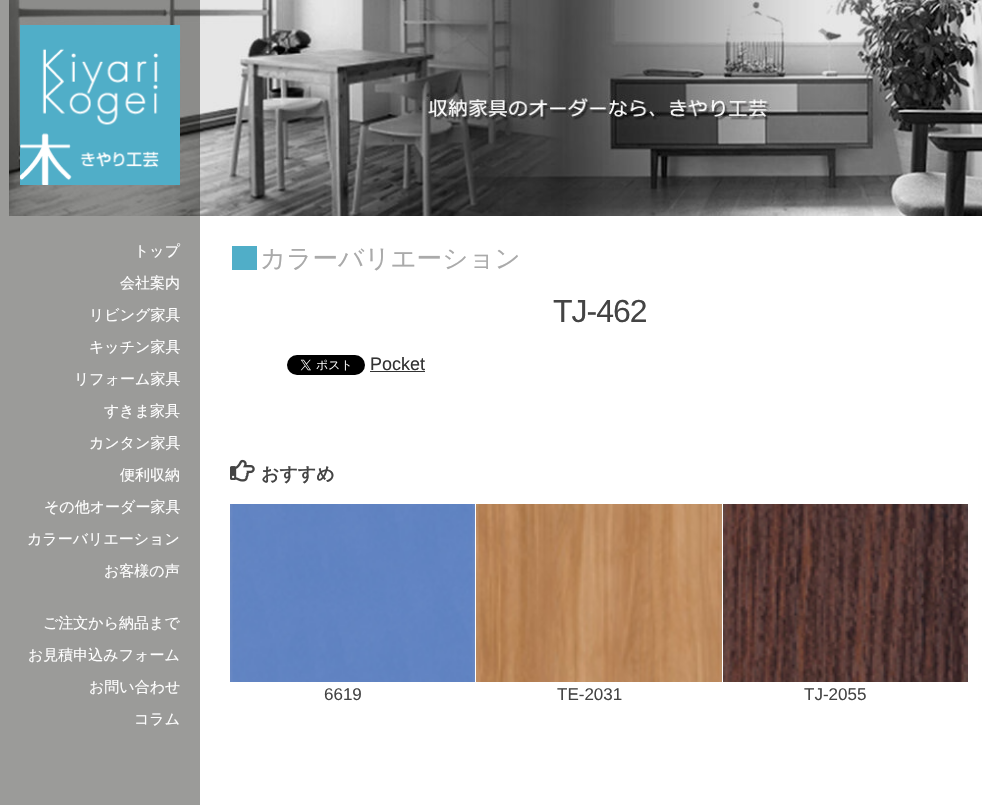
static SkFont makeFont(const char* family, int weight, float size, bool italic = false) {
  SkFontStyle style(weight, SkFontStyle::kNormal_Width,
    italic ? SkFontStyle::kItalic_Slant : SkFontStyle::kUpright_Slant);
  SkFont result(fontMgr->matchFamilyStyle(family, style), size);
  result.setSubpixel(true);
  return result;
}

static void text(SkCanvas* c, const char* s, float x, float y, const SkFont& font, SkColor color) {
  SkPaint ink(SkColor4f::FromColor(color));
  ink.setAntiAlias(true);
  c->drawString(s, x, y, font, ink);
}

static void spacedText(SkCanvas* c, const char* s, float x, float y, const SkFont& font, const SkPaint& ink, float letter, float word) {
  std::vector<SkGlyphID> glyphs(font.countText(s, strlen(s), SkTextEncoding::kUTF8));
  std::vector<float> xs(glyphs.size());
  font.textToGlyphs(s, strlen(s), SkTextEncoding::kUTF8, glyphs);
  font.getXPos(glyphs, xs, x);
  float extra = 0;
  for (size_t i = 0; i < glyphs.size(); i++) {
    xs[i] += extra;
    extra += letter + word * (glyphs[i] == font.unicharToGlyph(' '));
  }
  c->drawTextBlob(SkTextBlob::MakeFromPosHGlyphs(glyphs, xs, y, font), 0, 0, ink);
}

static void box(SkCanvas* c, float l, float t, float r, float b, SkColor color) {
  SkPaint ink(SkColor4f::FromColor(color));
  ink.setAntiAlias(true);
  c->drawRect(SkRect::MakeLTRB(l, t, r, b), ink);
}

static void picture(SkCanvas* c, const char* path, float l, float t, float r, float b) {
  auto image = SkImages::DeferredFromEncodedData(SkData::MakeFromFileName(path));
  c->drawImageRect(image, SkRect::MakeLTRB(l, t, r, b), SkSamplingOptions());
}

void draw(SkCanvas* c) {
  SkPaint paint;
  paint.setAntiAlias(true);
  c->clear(0xffffffff);
  picture(c, "img_01.png", 9, 0, 982, 216);
  box(c, 0, 0, 200, 805, 0x66050501);
  picture(c, "img_02.png", 20, 25, 180, 185);
  SkFont face1 = makeFont("WenQuanYi Zen Hei", 500, 15);
  text(c, "トップ", 134, 256, face1, 0xffffffff);
  text(c, "会社案内", 120, 288, face1, 0xffffffff);
  text(c, "リビング家具", 89, 320, face1, 0xffffffff);
  text(c, "キッチン家具", 89, 352, face1, 0xffffffff);
  text(c, "リフォーム家具", 74, 384, face1, 0xffffffff);
  text(c, "すきま家具", 104, 416, face1, 0xffffffff);
  text(c, "カンタン家具", 89, 448, face1, 0xffffffff);
  text(c, "便利収納", 120, 480, face1, 0xffffffff);
  text(c, "その他オーダー家具", 44, 512, face1, 0xffffffff);
  text(c, "カラーバリエーション", 27, 544, face1, 0xffffffff);
  text(c, "お客様の声", 104, 576, face1, 0xffffffff);
  text(c, "ご注文から納品まで", 43, 628, face1, 0xffffffff);
  text(c, "お見積申込みフォーム", 28, 660, face1, 0xffffffff);
  text(c, "お問い合わせ", 89, 692, face1, 0xffffffff);
  text(c, "コラム", 134, 724, face1, 0xffffffff);
  box(c, 232, 246, 257, 270, 0xff50aec8);
  SkFont face2 = makeFont("WenQuanYi Zen Hei", 500, 25.6f);
  text(c, "カラーバリエーション", 260, 267, face2, 0xffaaaaaa);
  SkFont face3 = makeFont("Liberation Sans", 400, 32);
  paint.setColor(0xff444444);
  spacedText(c, "TJ-462", 553, 322, face3, paint, -1, 0);
  picture(c, "img_03.png", 287, 355, 365, 375);
  SkFont face4 = makeFont("Liberation Sans", 400, 18);
  text(c, "Pocket", 370, 370, face4, 0xff333333);
  box(c, 370, 371, 425, 372, 0xff333333);
  picture(c, "img_04.png", 230, 459, 255, 482);
  SkFont face5 = makeFont("WenQuanYi Zen Hei", 700, 18);
  text(c, "おすすめ", 261, 480, face5, 0xff444444);
  picture(c, "img_05.png", 230, 504, 475, 682);
  SkFont face6 = makeFont("Liberation Sans", 400, 17);
  text(c, "6619", 324, 700, face6, 0xff444444);
  picture(c, "img_06.png", 476, 504, 722, 682);
  text(c, "TE-2031", 557, 700, face6, 0xff444444);
  picture(c, "img_07.png", 723, 504, 968, 682);
  text(c, "TJ-2055", 804, 700, face6, 0xff444444);
}
